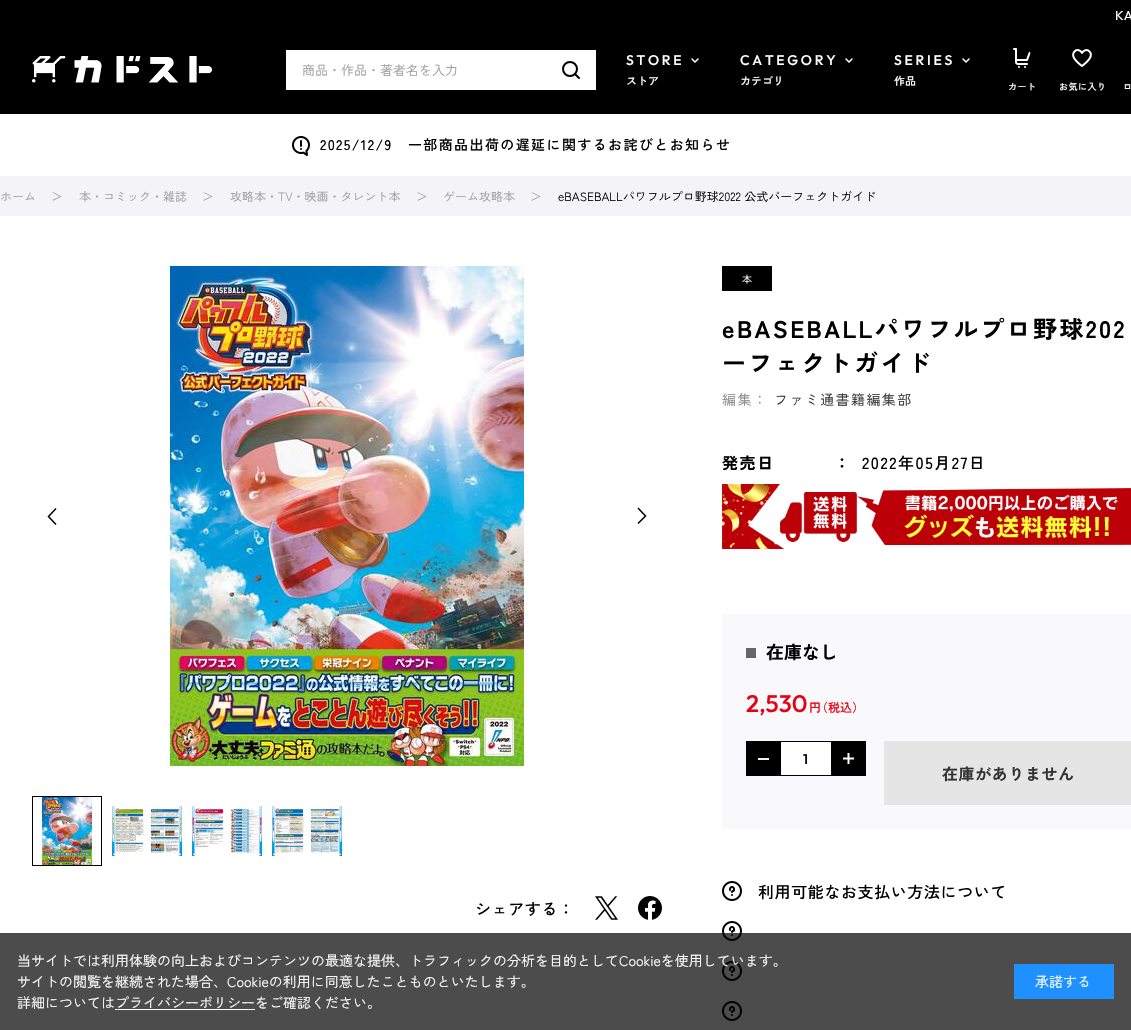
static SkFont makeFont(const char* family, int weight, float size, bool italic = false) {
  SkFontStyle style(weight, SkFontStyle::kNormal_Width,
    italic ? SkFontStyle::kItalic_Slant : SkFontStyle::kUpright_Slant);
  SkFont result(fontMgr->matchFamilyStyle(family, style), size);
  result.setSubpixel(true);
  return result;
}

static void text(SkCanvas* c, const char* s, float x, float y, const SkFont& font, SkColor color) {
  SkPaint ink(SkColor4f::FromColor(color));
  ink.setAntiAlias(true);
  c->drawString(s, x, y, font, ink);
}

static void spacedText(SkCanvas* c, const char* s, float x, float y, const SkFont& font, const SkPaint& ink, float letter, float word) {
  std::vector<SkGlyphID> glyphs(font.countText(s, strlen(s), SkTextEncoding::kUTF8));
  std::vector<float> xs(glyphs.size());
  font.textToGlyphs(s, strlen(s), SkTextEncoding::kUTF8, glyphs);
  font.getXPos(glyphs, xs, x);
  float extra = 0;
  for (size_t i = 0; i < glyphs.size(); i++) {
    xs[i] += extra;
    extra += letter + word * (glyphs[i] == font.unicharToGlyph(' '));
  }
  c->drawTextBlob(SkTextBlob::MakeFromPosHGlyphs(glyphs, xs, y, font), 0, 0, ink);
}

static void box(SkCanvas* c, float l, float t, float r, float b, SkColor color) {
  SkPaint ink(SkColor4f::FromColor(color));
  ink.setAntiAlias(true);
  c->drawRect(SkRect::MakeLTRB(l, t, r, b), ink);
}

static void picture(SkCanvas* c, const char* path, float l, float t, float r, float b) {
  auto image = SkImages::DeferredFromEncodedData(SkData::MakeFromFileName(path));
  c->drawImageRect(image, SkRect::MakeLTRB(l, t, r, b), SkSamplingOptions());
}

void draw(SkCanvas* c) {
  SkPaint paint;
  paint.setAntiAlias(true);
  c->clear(0xffffffff);
  box(c, 0, 0, 1131, 114, 0xff000000);
  SkFont face1 = makeFont("Outfit", 400, 13);
  text(c, "KA", 1115, 20, face1, 0xffffffff);
  picture(c, "img_01.png", 32, 56, 212, 83);
  box(c, 286, 50, 596, 90, 0xffffffff);
  SkFont face2 = makeFont("Zen Kaku Gothic New", 400, 13);
  text(c, "商品・作品・著者名を入力", 302, 75, face2, 0xff9d9da5);
  paint.setStyle(SkPaint::kStroke_Style);
  paint.setStrokeWidth(2);
  paint.setColor(0xff000000);
  c->drawCircle(570, 69, 7, paint);
  paint.setStrokeCap(SkPaint::kRound_Cap);
  paint.setStrokeJoin(SkPaint::kRound_Join);
  c->drawPath(SkPathBuilder().moveTo(575, 74).lineTo(579, 78).detach(), paint);
  SkFont face3 = makeFont("Outfit", 500, 14);
  paint.setStyle(SkPaint::kFill_Style);
  paint.setColor(0xffffffff);
  spacedText(c, "STORE", 626, 65, face3, paint, 2.75f, 0);
  paint.setStyle(SkPaint::kStroke_Style);
  paint.setStrokeWidth(1.5f);
  paint.setColor(0xfffefefe);
  c->drawPath(SkPathBuilder().moveTo(692, 59).lineTo(695, 62).lineTo(698, 59).detach(), paint);
  SkFont face4 = makeFont("Zen Kaku Gothic New", 500, 11);
  text(c, "ストア", 626, 85, face4, 0xffffffff);
  paint.setStyle(SkPaint::kFill_Style);
  paint.setColor(0xffffffff);
  spacedText(c, "CATEGORY", 740, 65, face3, paint, 2.75f, 0);
  paint.setStyle(SkPaint::kStroke_Style);
  paint.setColor(0xfffefefe);
  c->drawPath(SkPathBuilder().moveTo(846, 59).lineTo(849, 62).lineTo(852, 59).detach(), paint);
  text(c, "カテゴリ", 740, 85, face4, 0xffffffff);
  paint.setStyle(SkPaint::kFill_Style);
  paint.setColor(0xffffffff);
  spacedText(c, "SERIES", 894, 65, face3, paint, 2.75f, 0);
  paint.setStyle(SkPaint::kStroke_Style);
  paint.setColor(0xfffefefe);
  c->drawPath(SkPathBuilder().moveTo(963, 59).lineTo(966, 62).lineTo(969, 59).detach(), paint);
  text(c, "作品", 894, 85, face4, 0xffffffff);
  picture(c, "img_02.png", 1013, 48, 1031, 68);
  SkFont face5 = makeFont("Zen Kaku Gothic New", 500, 9);
  paint.setStyle(SkPaint::kFill_Style);
  paint.setColor(0xffffffff);
  spacedText(c, "カート", 1008, 90, face5, paint, 0.5f, 0);
  picture(c, "img_03.png", 1072, 49, 1092, 67);
  spacedText(c, "お気に入り", 1059, 90, face5, paint, 0.5f, 0);
  spacedText(c, "ロ", 1123, 90, face5, paint, 0.5f, 0);
  picture(c, "img_04.png", 292, 136, 310, 156);
  SkFont face6 = makeFont("Zen Kaku Gothic New", 500, 14);
  paint.setColor(0xff000000);
  spacedText(c, "2025/12/9　一部商品出荷の遅延に関するお詫びとお知らせ", 320, 150, face6, paint, 1.4f, 0);
  box(c, 0, 176, 1131, 216, 0xfff4f4f7);
  SkFont face7 = makeFont("Zen Kaku Gothic New", 400, 12);
  text(c, "ホーム", 0, 201, face7, 0xff9d9da5);
  text(c, "＞", 51, 201, face7, 0xff9d9da5);
  text(c, "本・コミック・雑誌", 79, 201, face7, 0xff9d9da5);
  text(c, "＞", 202, 201, face7, 0xff9d9da5);
  text(c, "攻略本・TV・映画・タレント本", 230, 201, face7, 0xff9d9da5);
  text(c, "＞", 416, 201, face7, 0xff9d9da5);
  text(c, "ゲーム攻略本", 443, 201, face7, 0xff9d9da5);
  text(c, "＞", 530, 201, face7, 0xff9d9da5);
  text(c, "eBASEBALLパワフルプロ野球2022 公式パーフェクトガイド", 558, 201, face7, 0xff000000);
  picture(c, "img_05.png", 722, 266, 772, 291);
  SkFont face8 = makeFont("Zen Kaku Gothic New", 700, 24);
  spacedText(c, "eBASEBALLパワフルプロ野球202", 722, 338, face8, paint, 2.4f, 0);
  spacedText(c, "ーフェクトガイド", 722, 372, face8, paint, 2.4f, 0);
  SkFont face9 = makeFont("Zen Kaku Gothic New", 400, 14);
  paint.setColor(0xff888888);
  spacedText(c, "編集：", 722, 405, face9, paint, 1.4f, 0);
  paint.setColor(0xff333333);
  spacedText(c, "ファミ通書籍編集部", 774, 405, face9, paint, 1.4f, 0);
  SkFont face10 = makeFont("Zen Kaku Gothic New", 700, 16);
  paint.setColor(0xff000000);
  spacedText(c, "発売日", 722, 469, face10, paint, 1.6f, 0);
  spacedText(c, "：", 834, 469, face10, paint, 1.6f, 0);
  SkFont face11 = makeFont("Zen Kaku Gothic New", 500, 16);
  spacedText(c, "2022年05月27日", 862, 469, face11, paint, 1.6f, 0);
  picture(c, "img_06.png", 722, 484, 1131, 549);
  box(c, 722, 614, 1131, 829, 0xfff9f9fb);
  box(c, 746, 648, 756, 658, 0xff666666);
  SkFont face12 = makeFont("Zen Kaku Gothic New", 700, 18);
  text(c, "在庫なし", 766, 659, face12, 0xff000000);
  SkFont face13 = makeFont("Outfit", 500, 24);
  text(c, "2,530", 746, 712, face13, 0xffe60113);
  SkFont face14 = makeFont("Zen Kaku Gothic New", 500, 12);
  text(c, "円", 809, 712, face14, 0xffe60113);
  text(c, "（税込）", 816, 712, face14, 0xffe60113);
  box(c, 746, 741, 781, 776, 0xff000000);
  box(c, 758, 758, 769, 760, 0xfff2f2f2);
  box(c, 781, 742, 831, 775, 0xffffffff);
  box(c, 781, 741, 831, 742, 0xff000000);
  box(c, 781, 775, 831, 776, 0xff000000);
  spacedText(c, "1", 803, 764, face3, paint, 1, 0);
  box(c, 831, 741, 866, 776, 0xff000000);
  paint.setStyle(SkPaint::kStroke_Style);
  paint.setStrokeWidth(2);
  paint.setStrokeCap(SkPaint::kButt_Cap);
  paint.setColor(0xffffffff);
  c->drawPath(SkPathBuilder().moveTo(848.5f, 753).lineTo(848.5f, 764).moveTo(854, 758.5f).lineTo(843, 758.5f).detach(), paint);
  box(c, 884, 741, 1131, 805, 0xffe5e5e5);
  paint.setStyle(SkPaint::kFill_Style);
  paint.setColor(0xff333333);
  spacedText(c, "在庫がありません", 942, 780, face10, paint, 0.6f, 0);
  picture(c, "img_07.png", 722, 881, 742, 901);
  paint.setColor(0xff000000);
  spacedText(c, "利用可能なお支払い方法について", 758, 898, face11, paint, 0.6f, 0);
  picture(c, "img_07.png", 722, 921, 742, 941);
  picture(c, "img_07.png", 722, 961, 742, 981);
  picture(c, "img_07.png", 722, 1001, 742, 1021);
  paint.setStyle(SkPaint::kStroke_Style);
  paint.setStrokeWidth(1.5f);
  paint.setStrokeJoin(SkPaint::kMiter_Join);
  c->drawPath(SkPathBuilder().moveTo(56, 524.5f).lineTo(48.5f, 516.5f).lineTo(56, 508.5f).detach(), paint);
  picture(c, "img_08.png", 170, 266, 524, 766);
  c->drawPath(SkPathBuilder().moveTo(638, 508).lineTo(645.5f, 516).lineTo(638, 523.5f).detach(), paint);
  picture(c, "img_09.png", 42, 797, 92, 865);
  paint.setStrokeWidth(1);
  c->drawRect(SkRect::MakeLTRB(32.5f, 796.5f, 101.5f, 865.5f), paint);
  picture(c, "img_10.png", 112, 806, 182, 856);
  picture(c, "img_11.png", 192, 806, 262, 856);
  picture(c, "img_12.png", 272, 806, 342, 856);
  paint.setStyle(SkPaint::kFill_Style);
  spacedText(c, "シェアする：", 475, 915, face11, paint, 0.6f, 0);
  picture(c, "img_13.png", 595, 896, 618, 920);
  picture(c, "img_14.png", 638, 896, 662, 920);
  box(c, 0, 933, 1131, 1030, 0xb3000000);
  text(c, "当サイトでは利用体験の向上およびコンテンツの最適な提供、トラフィックの分析を目的としてCookieを使用しています。", 17, 966, face9, 0xffffffff);
  text(c, "サイトの閲覧を継続された場合、Cookieの利用に同意したことものといたします。", 17, 987, face9, 0xffffffff);
  text(c, "詳細についてはプライバシーポリシーをご確認ください。", 17, 1008, face9, 0xffffffff);
  box(c, 115, 1009, 255, 1010, 0xffffffff);
  box(c, 1014, 964, 1114, 999, 0xff1e90ff);
  text(c, "承諾する", 1035, 987, face9, 0xffffffff);
}
